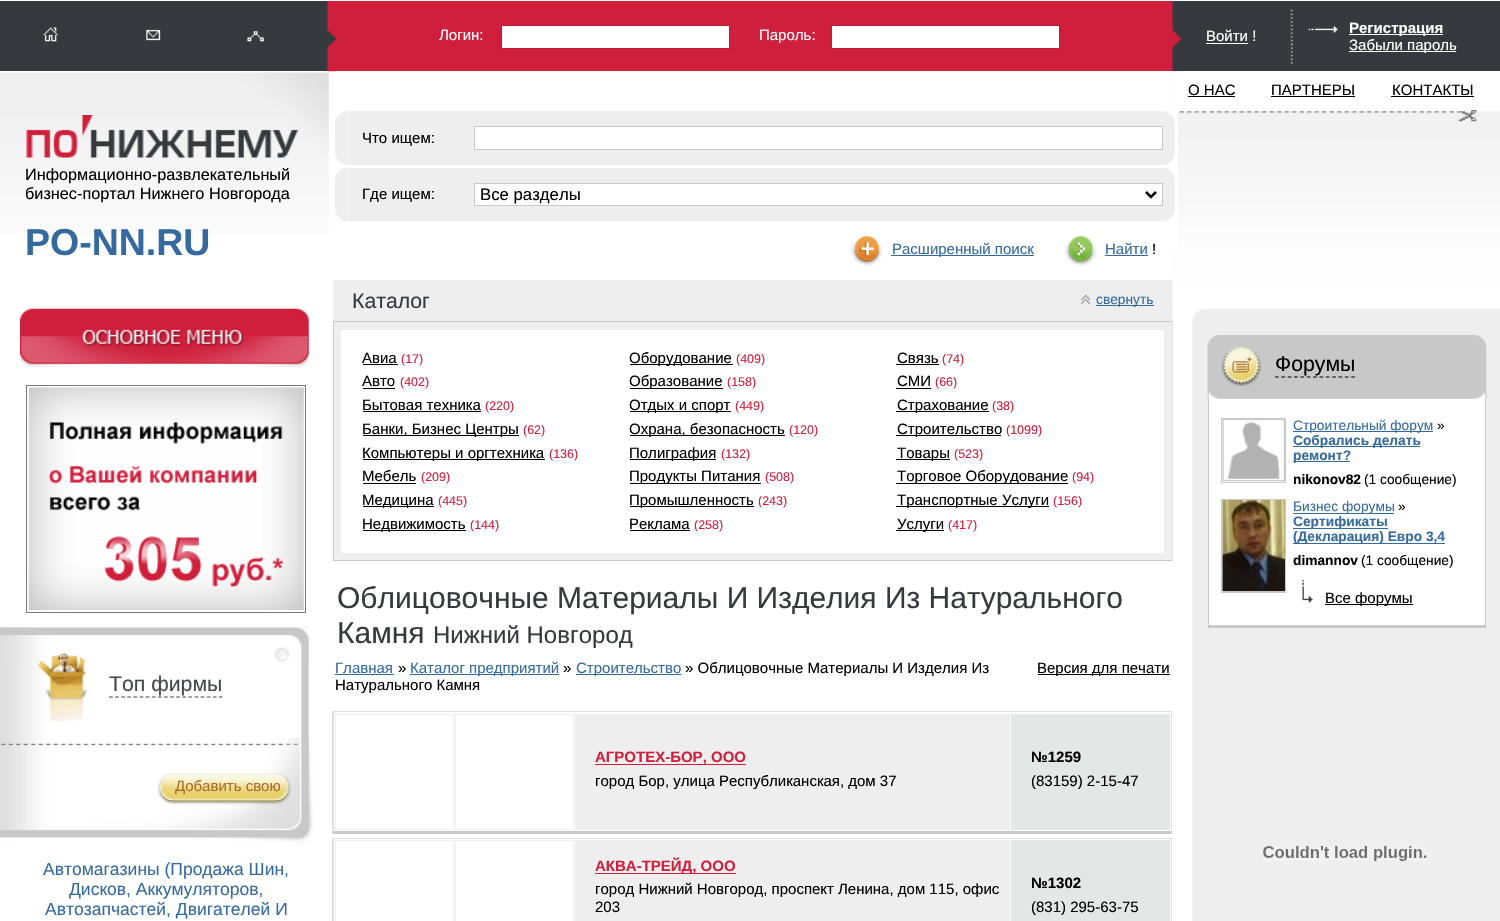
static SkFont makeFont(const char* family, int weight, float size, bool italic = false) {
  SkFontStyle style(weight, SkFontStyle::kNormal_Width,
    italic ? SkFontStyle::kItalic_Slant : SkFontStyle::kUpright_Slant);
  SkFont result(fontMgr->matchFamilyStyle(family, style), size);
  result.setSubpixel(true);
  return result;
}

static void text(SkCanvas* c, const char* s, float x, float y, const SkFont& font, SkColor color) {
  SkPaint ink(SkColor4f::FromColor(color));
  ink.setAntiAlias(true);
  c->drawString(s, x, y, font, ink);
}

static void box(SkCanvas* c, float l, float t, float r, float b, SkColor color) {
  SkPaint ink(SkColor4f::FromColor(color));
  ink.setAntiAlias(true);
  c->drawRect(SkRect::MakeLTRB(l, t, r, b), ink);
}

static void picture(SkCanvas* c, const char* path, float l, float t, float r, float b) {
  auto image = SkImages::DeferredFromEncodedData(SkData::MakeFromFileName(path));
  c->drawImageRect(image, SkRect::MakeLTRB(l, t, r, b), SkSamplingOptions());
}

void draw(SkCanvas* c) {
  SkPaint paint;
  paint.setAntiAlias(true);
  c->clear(0xffffffff);
  box(c, 0, 1, 328, 71, 0xff36393d);
  picture(c, "img_01.png", 43, 27, 58, 42);
  picture(c, "img_02.png", 146, 29, 161, 41);
  picture(c, "img_03.png", 247, 31, 264, 42);
  box(c, 328, 1, 1173, 71, 0xffd01f3c);
  picture(c, "img_04.png", 327, 1, 337, 72);
  SkFont face1 = makeFont("Liberation Sans", 400, 15);
  text(c, "Логин:", 439, 40, face1, 0xffffffff);
  paint.setColor(0xffffffff);
  c->drawRect(SkRect::MakeLTRB(501.5f, 25.5f, 729.5f, 48.5f), paint);
  paint.setStyle(SkPaint::kStroke_Style);
  paint.setStrokeWidth(1);
  paint.setColor(0xffba1c36);
  c->drawRect(SkRect::MakeLTRB(501.5f, 25.5f, 729.5f, 48.5f), paint);
  text(c, "Пароль:", 759, 40, face1, 0xffffffff);
  paint.setStyle(SkPaint::kFill_Style);
  paint.setColor(0xffffffff);
  c->drawRect(SkRect::MakeLTRB(831.5f, 25.5f, 1059.5f, 48.5f), paint);
  paint.setStyle(SkPaint::kStroke_Style);
  paint.setColor(0xffba1c36);
  c->drawRect(SkRect::MakeLTRB(831.5f, 25.5f, 1059.5f, 48.5f), paint);
  box(c, 1173, 1, 1500, 71, 0xff36393d);
  picture(c, "img_05.png", 1172, 1, 1182, 72);
  text(c, "Войти !", 1206, 41, face1, 0xffffffff);
  box(c, 1206, 43, 1248, 44, 0xffffffff);
  picture(c, "img_06.png", 1308, 26, 1338, 33);
  picture(c, "img_07.png", 1290, 8, 1293, 64);
  box(c, 1349, 34, 1443, 35, 0xffffffff);
  SkFont face2 = makeFont("Liberation Sans", 700, 15);
  text(c, "Регистрация", 1349, 33, face2, 0xffffffff);
  box(c, 1349, 51, 1456, 52, 0xffffffff);
  text(c, "Забыли пароль", 1349, 50, face1, 0xffffffff);
  picture(c, "img_08.png", 0, 71, 329, 234);
  picture(c, "img_09.png", 26, 115, 299, 158);
  SkFont face3 = makeFont("Liberation Sans", 400, 16.25f);
  text(c, "Информационно-развлекательный", 25, 180, face3, 0xff000000);
  text(c, "бизнес-портал Нижнего Новгорода", 25, 199, face3, 0xff000000);
  SkFont face4 = makeFont("Liberation Sans", 700, 37.5f);
  text(c, "PO-NN.RU", 25, 255, face4, 0xff356aa0);
  picture(c, "img_10.png", 20, 308, 309, 368);
  paint.setColor(0xff797979);
  c->drawRect(SkRect::MakeLTRB(26.5f, 385.5f, 305.5f, 612.5f), paint);
  picture(c, "img_11.png", 28, 387, 304, 610);
  picture(c, "img_12.png", 0, 627, 309, 844);
  picture(c, "img_13.png", 0, 627, 309, 662);
  picture(c, "img_14.png", 0, 737, 313, 844);
  picture(c, "img_15.png", 37, 652, 89, 722);
  SkFont face5 = makeFont("Liberation Sans", 400, 21.25f);
  text(c, "Топ фирмы", 109, 691, face5, 0xff43464a);
  paint.setStrokeWidth(1.2f);
  paint.setColor(0xff43464a);
  paint.setPathEffect(SkDashPathEffect::Make({{3.75f, 2.36f}}, 0));
  c->drawPath(SkPathBuilder().moveTo(109, 697).lineTo(222.5f, 697).detach(), paint);
  paint.setPathEffect(nullptr);
  picture(c, "img_16.png", 157, 773, 291, 805);
  text(c, "Добавить свою", 175, 791, face1, 0xffa96d28);
  SkFont face6 = makeFont("Liberation Sans", 400, 17.5f);
  text(c, "Автомагазины (Продажа Шин,", 43, 875, face6, 0xff356aa0);
  text(c, "Дисков, Аккумуляторов,", 69, 895, face6, 0xff356aa0);
  text(c, "Автозапчастей, Двигателей И", 45, 915, face6, 0xff356aa0);
  box(c, 333, 280, 1173, 321, 0xffeeeeee);
  picture(c, "img_24.png", 1172, 71, 1500, 306);
  picture(c, "img_25.png", 1172, 71, 1500, 113);
  box(c, 1172, 111, 1178, 252, 0xffffffff);
  picture(c, "img_17.png", 335, 111, 348, 165);
  box(c, 348, 111, 1163, 165, 0xffeeeeee);
  text(c, "Что ищем:", 362, 143, face1, 0xff000000);
  paint.setStyle(SkPaint::kFill_Style);
  paint.setColor(0xffffffff);
  c->drawRect(SkRect::MakeLTRB(474.5f, 126.5f, 1162.5f, 149.5f), paint);
  paint.setStyle(SkPaint::kStroke_Style);
  paint.setStrokeWidth(1);
  paint.setColor(0xffc8c8c8);
  c->drawRect(SkRect::MakeLTRB(474.5f, 126.5f, 1162.5f, 149.5f), paint);
  picture(c, "img_18.png", 1163, 111, 1175, 165);
  picture(c, "img_19.png", 335, 167, 348, 222);
  box(c, 348, 168, 1163, 221, 0xffeeeeee);
  text(c, "Где ищем:", 362, 199, face1, 0xff000000);
  picture(c, "img_20.png", 1162, 167, 1175, 222);
  paint.setStyle(SkPaint::kFill_Style);
  paint.setColor(0xffffffff);
  c->drawRect(SkRect::MakeLTRB(474.5f, 183.5f, 1162.5f, 205.5f), paint);
  paint.setStyle(SkPaint::kStroke_Style);
  paint.setColor(0xffc8c8c8);
  c->drawRect(SkRect::MakeLTRB(474.5f, 183.5f, 1162.5f, 205.5f), paint);
  paint.setStrokeWidth(2.5f);
  paint.setColor(0xff000000);
  c->drawPath(SkPathBuilder().moveTo(1146, 192).lineTo(1151, 197).lineTo(1156, 192).detach(), paint);
  SkFont face7 = makeFont("Liberation Sans", 400, 16.75f);
  text(c, "Все разделы", 480, 200, face7, 0xff000000);
  picture(c, "img_21.png", 850, 236, 883, 266);
  box(c, 891, 255, 1034, 256, 0xff356aa0);
  text(c, "Расширенный поиск", 892, 254, face1, 0xff356aa0);
  picture(c, "img_22.png", 1064, 236, 1097, 266);
  text(c, "Найти", 1105, 254, face1, 0xff356aa0);
  box(c, 1105, 255, 1148, 256, 0xff356aa0);
  text(c, "!", 1152, 254, face1, 0xff000000);
  text(c, "Каталог", 352, 308, face5, 0xff36393d);
  picture(c, "img_23.png", 1081, 295, 1090, 304);
  box(c, 1096, 305, 1154, 306, 0xff356aa0);
  SkFont face8 = makeFont("Liberation Sans", 400, 13.75f);
  text(c, "свернуть", 1096, 304, face8, 0xff356aa0);
  paint.setStyle(SkPaint::kFill_Style);
  paint.setColor(0xffeeeeee);
  c->drawRect(SkRect::MakeLTRB(333.5f, 321.5f, 1172.5f, 560.5f), paint);
  paint.setStyle(SkPaint::kStroke_Style);
  paint.setStrokeWidth(1);
  paint.setColor(0xffc8c8c8);
  c->drawRect(SkRect::MakeLTRB(333.5f, 321.5f, 1172.5f, 560.5f), paint);
  box(c, 341, 330, 1164, 553, 0xffffffff);
  text(c, "Авиа", 362, 363, face1, 0xff000000);
  box(c, 363, 364, 398, 365, 0xff000000);
  SkFont face9 = makeFont("Liberation Sans", 400, 12.5f);
  text(c, "(17)", 401, 363, face9, 0xffd01f3c);
  text(c, "Авто", 362, 386, face1, 0xff000000);
  box(c, 363, 388, 395, 389, 0xff000000);
  text(c, "(402)", 400, 386, face9, 0xffd01f3c);
  text(c, "Бытовая техника", 362, 410, face1, 0xff000000);
  box(c, 363, 411, 481, 412, 0xff000000);
  text(c, "(220)", 485, 410, face9, 0xffd01f3c);
  box(c, 363, 435, 519, 436, 0xff000000);
  text(c, "Банки, Бизнес Центры", 362, 434, face1, 0xff000000);
  text(c, "(62)", 523, 434, face9, 0xffd01f3c);
  box(c, 363, 459, 545, 460, 0xff000000);
  text(c, "Компьютеры и оргтехника", 362, 458, face1, 0xff000000);
  text(c, "(136)", 549, 458, face9, 0xffd01f3c);
  text(c, "Мебель", 362, 481, face1, 0xff000000);
  box(c, 363, 483, 416, 484, 0xff000000);
  text(c, "(209)", 421, 481, face9, 0xffd01f3c);
  box(c, 363, 506, 434, 507, 0xff000000);
  text(c, "Медицина", 362, 505, face1, 0xff000000);
  text(c, "(445)", 438, 505, face9, 0xffd01f3c);
  box(c, 363, 530, 466, 531, 0xff000000);
  text(c, "Недвижимость", 362, 529, face1, 0xff000000);
  text(c, "(144)", 470, 529, face9, 0xffd01f3c);
  box(c, 630, 364, 733, 365, 0xff000000);
  text(c, "Оборудование", 629, 363, face1, 0xff000000);
  text(c, "(409)", 736, 363, face9, 0xffd01f3c);
  box(c, 630, 388, 723, 389, 0xff000000);
  text(c, "Образование", 629, 386, face1, 0xff000000);
  text(c, "(158)", 727, 386, face9, 0xffd01f3c);
  box(c, 630, 411, 731, 412, 0xff000000);
  text(c, "Отдых и спорт", 629, 410, face1, 0xff000000);
  text(c, "(449)", 735, 410, face9, 0xffd01f3c);
  box(c, 630, 435, 785, 436, 0xff000000);
  text(c, "Охрана, безопасность", 629, 434, face1, 0xff000000);
  text(c, "(120)", 789, 434, face9, 0xffd01f3c);
  box(c, 630, 459, 716, 460, 0xff000000);
  text(c, "Полиграфия", 629, 458, face1, 0xff000000);
  text(c, "(132)", 721, 458, face9, 0xffd01f3c);
  box(c, 630, 483, 761, 484, 0xff000000);
  text(c, "Продукты Питания", 629, 481, face1, 0xff000000);
  text(c, "(508)", 765, 481, face9, 0xffd01f3c);
  box(c, 630, 506, 754, 507, 0xff000000);
  text(c, "Промышленность", 629, 505, face1, 0xff000000);
  text(c, "(243)", 758, 505, face9, 0xffd01f3c);
  text(c, "Реклама", 629, 529, face1, 0xff000000);
  box(c, 630, 530, 690, 531, 0xff000000);
  text(c, "(258)", 694, 529, face9, 0xffd01f3c);
  text(c, "Связь", 897, 363, face1, 0xff000000);
  box(c, 896, 364, 939, 365, 0xff000000);
  text(c, "(74)", 942, 363, face9, 0xffd01f3c);
  text(c, "СМИ", 897, 386, face1, 0xff000000);
  box(c, 896, 388, 931, 389, 0xff000000);
  text(c, "(66)", 935, 386, face9, 0xffd01f3c);
  box(c, 896, 411, 989, 412, 0xff000000);
  text(c, "Страхование", 897, 410, face1, 0xff000000);
  text(c, "(38)", 992, 410, face9, 0xffd01f3c);
  box(c, 896, 435, 1001, 436, 0xff000000);
  text(c, "Строительство", 897, 434, face1, 0xff000000);
  text(c, "(1099)", 1006, 434, face9, 0xffd01f3c);
  box(c, 896, 459, 950, 460, 0xff000000);
  text(c, "Товары", 897, 458, face1, 0xff000000);
  text(c, "(523)", 954, 458, face9, 0xffd01f3c);
  box(c, 896, 483, 1068, 484, 0xff000000);
  text(c, "Торговое Оборудование", 897, 481, face1, 0xff000000);
  text(c, "(94)", 1072, 481, face9, 0xffd01f3c);
  box(c, 896, 506, 1049, 507, 0xff000000);
  text(c, "Транспортные Услуги", 897, 505, face1, 0xff000000);
  text(c, "(156)", 1053, 505, face9, 0xffd01f3c);
  box(c, 896, 530, 944, 531, 0xff000000);
  text(c, "Услуги", 897, 529, face1, 0xff000000);
  text(c, "(417)", 948, 529, face9, 0xffd01f3c);
  SkFont face10 = makeFont("Liberation Sans", 400, 30);
  text(c, "Облицовочные Материалы И Изделия Из Натурального", 337, 608, face10, 0xff36393d);
  text(c, "Камня", 337, 643, face10, 0xff36393d);
  SkFont face11 = makeFont("Liberation Sans", 400, 24);
  text(c, "Нижний Новгород", 433, 643, face11, 0xff36393d);
  text(c, "Главная", 335, 673, face1, 0xff356aa0);
  box(c, 335, 674, 394, 675, 0xff356aa0);
  text(c, "»", 398, 673, face1, 0xff000000);
  box(c, 410, 674, 559, 675, 0xff356aa0);
  text(c, "Каталог предприятий", 410, 673, face1, 0xff356aa0);
  text(c, "»", 563, 673, face1, 0xff000000);
  box(c, 576, 674, 681, 675, 0xff356aa0);
  text(c, "Строительство", 576, 673, face1, 0xff356aa0);
  text(c, "» Облицовочные Материалы И Изделия Из", 685, 673, face1, 0xff000000);
  text(c, "Натурального Камня", 335, 690, face1, 0xff000000);
  box(c, 1038, 674, 1170, 675, 0xff000000);
  text(c, "Версия для печати", 1037, 673, face1, 0xff000000);
  box(c, 333, 711, 1173, 712, 0xffdedede);
  paint.setStyle(SkPaint::kFill_Style);
  paint.setColor(0xffdedede);
  c->drawPath(SkPathBuilder().moveTo(1172, 711).lineTo(1172, 834).lineTo(1171, 831).lineTo(1171, 712).close().detach(), paint);
  paint.setColor(0xffc8c8c8);
  c->drawPath(SkPathBuilder().moveTo(1172, 834).lineTo(332, 834).lineTo(334, 831).lineTo(1171, 831).close().detach(), paint);
  paint.setColor(0xffdedede);
  c->drawPath(SkPathBuilder().moveTo(332, 834).lineTo(332, 711).lineTo(334, 712).lineTo(334, 831).close().detach(), paint);
  paint.setStyle(SkPaint::kStroke_Style);
  paint.setColor(0xffeeeeee);
  c->drawRect(SkRect::MakeLTRB(335.5f, 714.5f, 453.5f, 829.5f), paint);
  c->drawRect(SkRect::MakeLTRB(455.5f, 714.5f, 573.5f, 829.5f), paint);
  box(c, 575, 714, 1010, 830, 0xffeeeeee);
  box(c, 595, 764, 746, 765, 0xffd01f3c);
  text(c, "АГРОТЕХ-БОР, ООО", 595, 762, face2, 0xffd01f3c);
  text(c, "город Бор, улица Республиканская, дом 37", 595, 786, face1, 0xff000000);
  box(c, 1011, 714, 1170, 830, 0xffe5e6e6);
  text(c, "№1259", 1031, 762, face2, 0xff000000);
  text(c, "(83159) 2-15-47", 1031, 786, face1, 0xff000000);
  box(c, 333, 838, 1173, 839, 0xffdedede);
  paint.setStyle(SkPaint::kFill_Style);
  paint.setColor(0xffdedede);
  c->drawPath(SkPathBuilder().moveTo(1172, 838).lineTo(1172, 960).lineTo(1171, 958).lineTo(1171, 839).close().detach(), paint);
  c->drawPath(SkPathBuilder().moveTo(332, 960).lineTo(332, 838).lineTo(334, 839).lineTo(334, 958).close().detach(), paint);
  paint.setStyle(SkPaint::kStroke_Style);
  paint.setColor(0xffeeeeee);
  c->drawRect(SkRect::MakeLTRB(335.5f, 840.5f, 453.5f, 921.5f), paint);
  c->drawRect(SkRect::MakeLTRB(455.5f, 840.5f, 573.5f, 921.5f), paint);
  box(c, 575, 840, 1010, 921, 0xffeeeeee);
  box(c, 595, 873, 736, 874, 0xffd01f3c);
  text(c, "АКВА-ТРЕЙД, ООО", 595, 871, face2, 0xffd01f3c);
  text(c, "город Нижний Новгород, проспект Ленина, дом 115, офис", 595, 894, face1, 0xff000000);
  text(c, "203", 595, 912, face1, 0xff000000);
  box(c, 1011, 840, 1170, 921, 0xffe5e6e6);
  text(c, "№1302", 1031, 888, face2, 0xff000000);
  text(c, "(831) 295-63-75", 1031, 912, face1, 0xff000000);
  text(c, "О НАС", 1188, 95, face1, 0xff000000);
  box(c, 1188, 96, 1235, 97, 0xff000000);
  text(c, "ПАРТНЕРЫ", 1271, 95, face1, 0xff000000);
  box(c, 1271, 96, 1355, 97, 0xff000000);
  text(c, "КОНТАКТЫ", 1392, 95, face1, 0xff000000);
  box(c, 1391, 96, 1474, 97, 0xff000000);
  picture(c, "img_26.png", 1458, 110, 1499, 122);
  picture(c, "img_27.png", 1172, 308, 1500, 921);
  picture(c, "img_28.png", 1172, 309, 1202, 321);
  picture(c, "img_29.png", 1207, 335, 1487, 399);
  picture(c, "img_30.png", 1221, 346, 1262, 387);
  text(c, "Форумы", 1275, 371, face5, 0xff000000);
  paint.setStrokeWidth(1.2f);
  paint.setColor(0xff000000);
  paint.setPathEffect(SkDashPathEffect::Make({{3.75f, 2.6f}}, 0));
  c->drawPath(SkPathBuilder().moveTo(1275, 377).lineTo(1355, 377).detach(), paint);
  paint.setPathEffect(nullptr);
  box(c, 1209, 399, 1485, 625, 0xffffffff);
  box(c, 1485, 399, 1486, 628, 0xffc8c8c8);
  box(c, 1208, 625, 1486, 628, 0xffc8c8c8);
  box(c, 1208, 399, 1209, 628, 0xffc8c8c8);
  paint.setStrokeWidth(1);
  paint.setColor(0xffc8c8c8);
  c->drawRect(SkRect::MakeLTRB(1221.5f, 418.5f, 1285.5f, 482.5f), paint);
  picture(c, "img_31.png", 1222, 419, 1285, 482);
  box(c, 1293, 431, 1433, 432, 0xff356aa0);
  text(c, "Строительный форум", 1293, 430, face8, 0xff356aa0);
  text(c, "»", 1437, 430, face8, 0xff000000);
  box(c, 1293, 446, 1420, 447, 0xff356aa0);
  SkFont face12 = makeFont("Liberation Sans", 700, 13.75f);
  text(c, "Собрались делать", 1293, 445, face12, 0xff356aa0);
  box(c, 1293, 461, 1350, 462, 0xff356aa0);
  text(c, "ремонт?", 1293, 460, face12, 0xff356aa0);
  text(c, "nikonov82", 1293, 484, face12, 0xff000000);
  text(c, "(1 сообщение)", 1364, 484, face8, 0xff000000);
  c->drawRect(SkRect::MakeLTRB(1221.5f, 499.5f, 1285.5f, 592.5f), paint);
  picture(c, "img_32.png", 1222, 500, 1285, 592);
  box(c, 1293, 513, 1394, 514, 0xff356aa0);
  text(c, "Бизнес форумы", 1293, 511, face8, 0xff356aa0);
  text(c, "»", 1398, 511, face8, 0xff000000);
  box(c, 1293, 528, 1388, 529, 0xff356aa0);
  text(c, "Сертификаты", 1293, 526, face12, 0xff356aa0);
  box(c, 1293, 543, 1445, 544, 0xff356aa0);
  text(c, "(Декларация) Евро 3,4", 1293, 541, face12, 0xff356aa0);
  text(c, "dimannov", 1293, 565, face12, 0xff000000);
  text(c, "(1 сообщение)", 1361, 565, face8, 0xff000000);
  picture(c, "img_33.png", 1302, 580, 1313, 603);
  box(c, 1325, 604, 1413, 605, 0xff000000);
  text(c, "Все форумы", 1325, 603, face1, 0xff000000);
  picture(c, "img_34.png", 1263, 846, 1427, 861);
}
